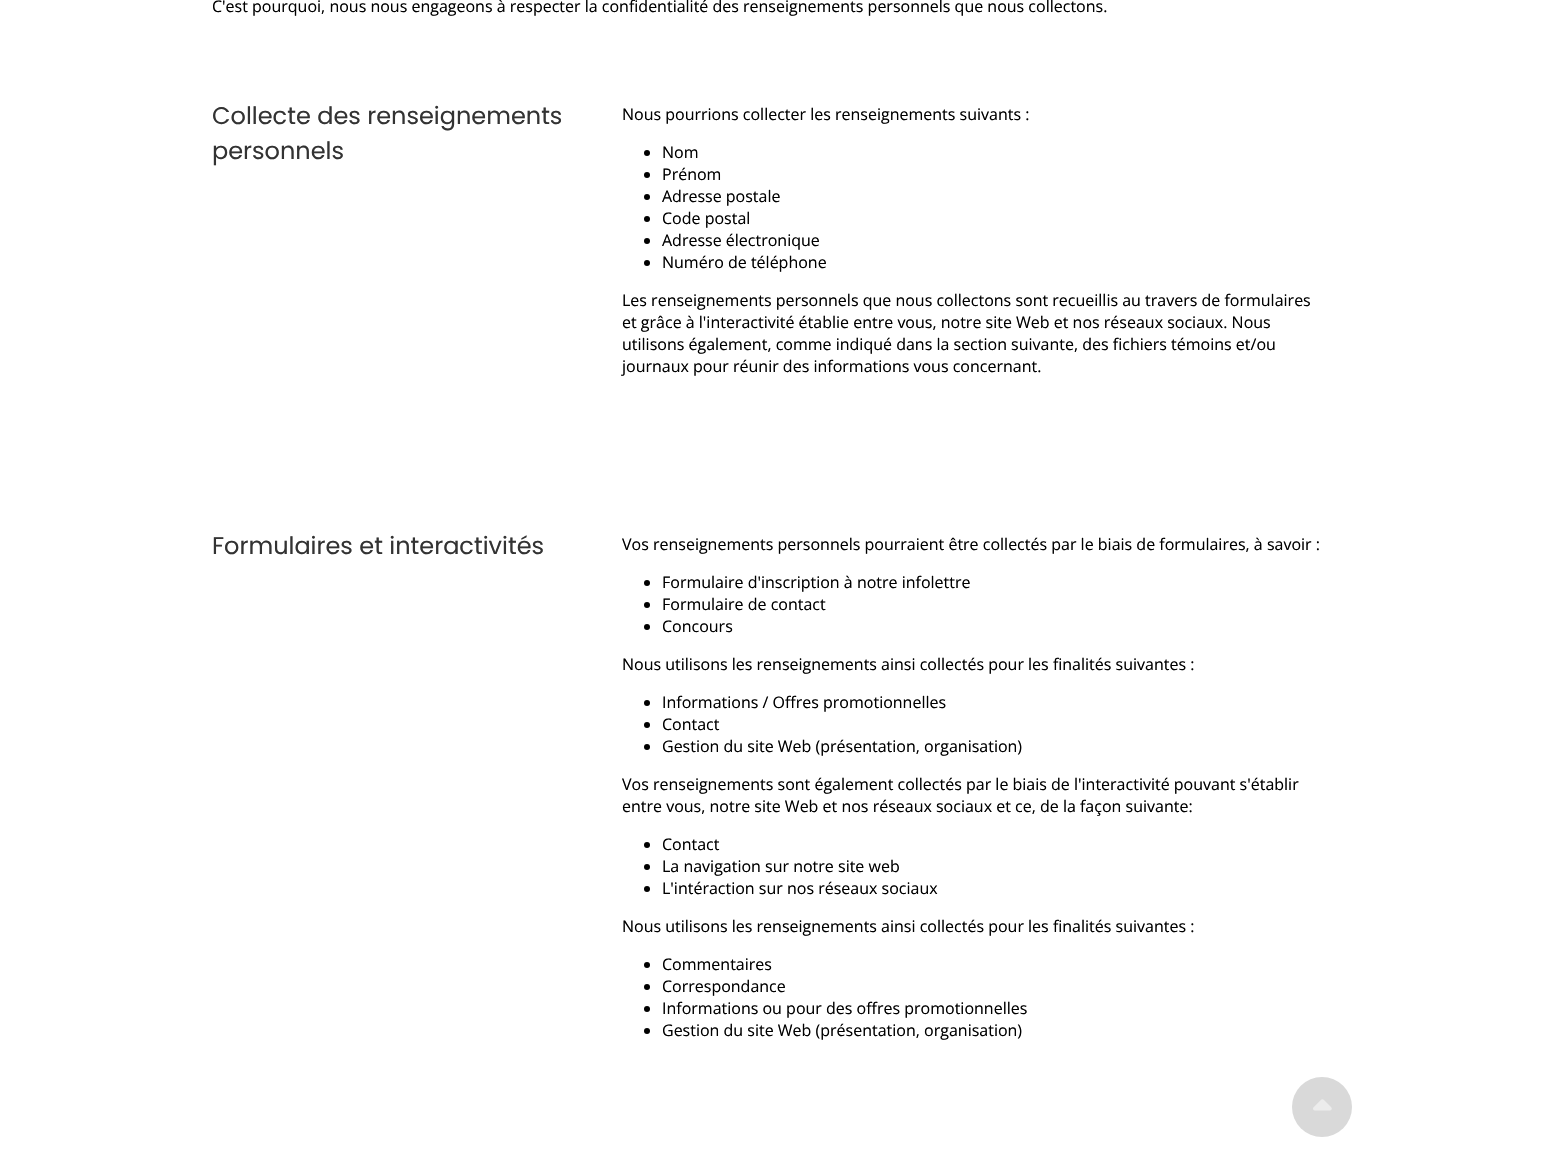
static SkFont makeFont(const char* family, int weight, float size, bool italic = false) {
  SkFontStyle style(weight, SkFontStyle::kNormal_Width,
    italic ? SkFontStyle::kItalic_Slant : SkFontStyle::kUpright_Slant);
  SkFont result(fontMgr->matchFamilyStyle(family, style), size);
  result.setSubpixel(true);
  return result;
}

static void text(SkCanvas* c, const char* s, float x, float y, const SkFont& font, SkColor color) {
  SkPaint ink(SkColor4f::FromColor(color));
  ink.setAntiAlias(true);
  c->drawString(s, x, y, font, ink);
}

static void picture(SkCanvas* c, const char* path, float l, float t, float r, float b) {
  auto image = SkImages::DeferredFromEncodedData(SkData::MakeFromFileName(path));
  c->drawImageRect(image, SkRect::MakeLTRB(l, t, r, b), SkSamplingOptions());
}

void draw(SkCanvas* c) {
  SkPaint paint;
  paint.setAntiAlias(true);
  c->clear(0xffffffff);
  SkFont face1 = makeFont("Open Sans", 400, 16);
  text(c, "C'est pourquoi, nous nous engageons à respecter la confidentialité des renseignements personnels que nous collectons.", 212, 12, face1, 0xff000000);
  SkFont face2 = makeFont("Poppins", 400, 24);
  text(c, "Collecte des renseignements", 212, 124, face2, 0xff333333);
  text(c, "personnels", 212, 159, face2, 0xff333333);
  text(c, "Nous pourrions collecter les renseignements suivants :", 622, 120, face1, 0xff000000);
  paint.setColor(0xff000000);
  c->drawCircle(647, 153, 3, paint);
  text(c, "Nom", 662, 158, face1, 0xff000000);
  c->drawCircle(647, 175, 3, paint);
  text(c, "Prénom", 662, 180, face1, 0xff000000);
  c->drawCircle(647, 197, 3, paint);
  text(c, "Adresse postale", 662, 202, face1, 0xff000000);
  c->drawCircle(647, 219, 3, paint);
  text(c, "Code postal", 662, 224, face1, 0xff000000);
  c->drawCircle(647, 241, 3, paint);
  text(c, "Adresse électronique", 662, 246, face1, 0xff000000);
  c->drawCircle(647, 263, 3, paint);
  text(c, "Numéro de téléphone", 662, 268, face1, 0xff000000);
  text(c, "Les renseignements personnels que nous collectons sont recueillis au travers de formulaires", 622, 306, face1, 0xff000000);
  text(c, "et grâce à l'interactivité établie entre vous, notre site Web et nos réseaux sociaux. Nous", 622, 328, face1, 0xff000000);
  text(c, "utilisons également, comme indiqué dans la section suivante, des fichiers témoins et/ou", 622, 350, face1, 0xff000000);
  text(c, "journaux pour réunir des informations vous concernant.", 622, 372, face1, 0xff000000);
  text(c, "Formulaires et interactivités", 212, 554, face2, 0xff333333);
  text(c, "Vos renseignements personnels pourraient être collectés par le biais de formulaires, à savoir :", 622, 550, face1, 0xff000000);
  c->drawCircle(647, 583, 3, paint);
  text(c, "Formulaire d'inscription à notre infolettre", 662, 588, face1, 0xff000000);
  c->drawCircle(647, 605, 3, paint);
  text(c, "Formulaire de contact", 662, 610, face1, 0xff000000);
  c->drawCircle(647, 627, 3, paint);
  text(c, "Concours", 662, 632, face1, 0xff000000);
  text(c, "Nous utilisons les renseignements ainsi collectés pour les finalités suivantes :", 622, 670, face1, 0xff000000);
  c->drawCircle(647, 703, 3, paint);
  text(c, "Informations / Offres promotionnelles", 662, 708, face1, 0xff000000);
  c->drawCircle(647, 725, 3, paint);
  text(c, "Contact", 662, 730, face1, 0xff000000);
  c->drawCircle(647, 747, 3, paint);
  text(c, "Gestion du site Web (présentation, organisation)", 662, 752, face1, 0xff000000);
  text(c, "Vos renseignements sont également collectés par le biais de l'interactivité pouvant s'établir", 622, 790, face1, 0xff000000);
  text(c, "entre vous, notre site Web et nos réseaux sociaux et ce, de la façon suivante:", 622, 812, face1, 0xff000000);
  c->drawCircle(647, 845, 3, paint);
  text(c, "Contact", 662, 850, face1, 0xff000000);
  c->drawCircle(647, 867, 3, paint);
  text(c, "La navigation sur notre site web", 662, 872, face1, 0xff000000);
  c->drawCircle(647, 889, 3, paint);
  text(c, "L'intéraction sur nos réseaux sociaux", 662, 894, face1, 0xff000000);
  text(c, "Nous utilisons les renseignements ainsi collectés pour les finalités suivantes :", 622, 932, face1, 0xff000000);
  c->drawCircle(647, 965, 3, paint);
  text(c, "Commentaires", 662, 970, face1, 0xff000000);
  c->drawCircle(647, 987, 3, paint);
  text(c, "Correspondance", 662, 992, face1, 0xff000000);
  c->drawCircle(647, 1009, 3, paint);
  text(c, "Informations ou pour des offres promotionnelles", 662, 1014, face1, 0xff000000);
  c->drawCircle(647, 1031, 3, paint);
  text(c, "Gestion du site Web (présentation, organisation)", 662, 1036, face1, 0xff000000);
  paint.setColor(0xffd9d9d9);
  c->drawCircle(1322, 1107, 30, paint);
  picture(c, "img_01.png", 1313, 1099, 1332, 1111);
}
